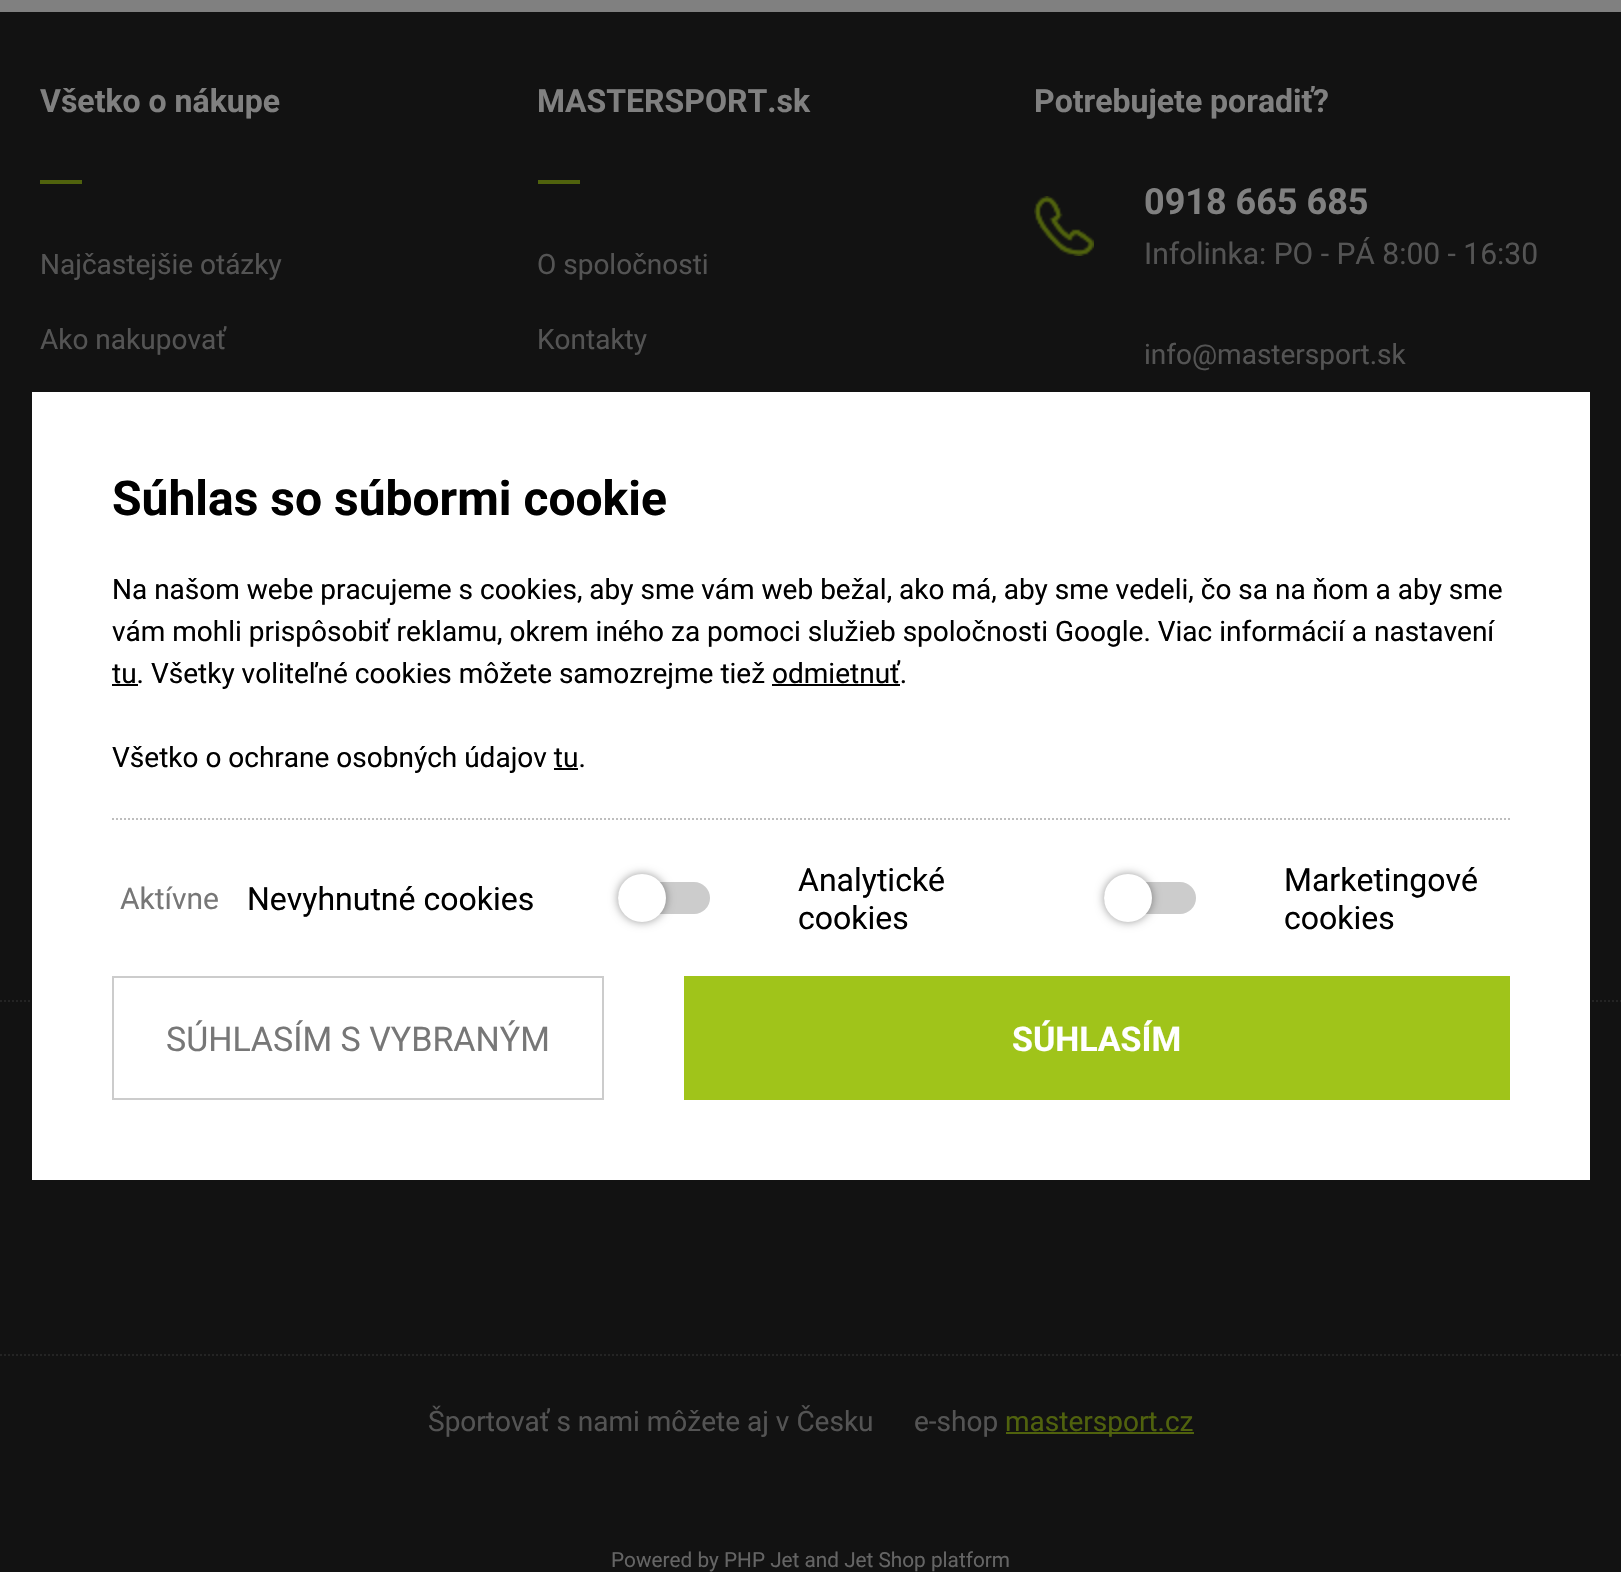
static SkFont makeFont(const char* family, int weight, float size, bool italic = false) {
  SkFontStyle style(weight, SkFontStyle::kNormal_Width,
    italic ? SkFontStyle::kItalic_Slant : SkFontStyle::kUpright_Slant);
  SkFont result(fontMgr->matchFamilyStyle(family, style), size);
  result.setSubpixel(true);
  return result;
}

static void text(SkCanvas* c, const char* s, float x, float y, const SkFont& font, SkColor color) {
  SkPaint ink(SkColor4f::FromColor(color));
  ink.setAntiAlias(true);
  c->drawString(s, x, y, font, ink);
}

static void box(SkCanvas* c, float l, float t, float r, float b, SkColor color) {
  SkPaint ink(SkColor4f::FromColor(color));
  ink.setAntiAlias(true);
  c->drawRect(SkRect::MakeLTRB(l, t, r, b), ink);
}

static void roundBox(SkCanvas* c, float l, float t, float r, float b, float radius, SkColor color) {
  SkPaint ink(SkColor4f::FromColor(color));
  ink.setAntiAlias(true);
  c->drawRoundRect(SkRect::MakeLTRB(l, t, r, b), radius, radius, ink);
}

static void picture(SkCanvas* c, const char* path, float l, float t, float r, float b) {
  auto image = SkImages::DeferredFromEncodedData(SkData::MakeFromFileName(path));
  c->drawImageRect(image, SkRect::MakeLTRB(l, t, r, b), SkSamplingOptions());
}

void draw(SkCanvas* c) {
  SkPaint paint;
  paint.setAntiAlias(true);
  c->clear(0xff808080);
  box(c, 0, 12, 1621, 1572, 0xff121212);
  SkFont face1 = makeFont("Roboto", 700, 32);
  text(c, "Všetko o nákupe", 40, 112, face1, 0xff808080);
  box(c, 40, 180, 82, 184, 0xff50620d);
  SkFont face2 = makeFont("Roboto", 400, 28);
  text(c, "Najčastejšie otázky", 40, 274, face2, 0xff545454);
  text(c, "Ako nakupovať", 40, 349, face2, 0xff545454);
  text(c, "MASTERSPORT.sk", 537, 112, face1, 0xff808080);
  box(c, 538, 180, 580, 184, 0xff50620d);
  text(c, "O spoločnosti", 537, 274, face2, 0xff545454);
  text(c, "Kontakty", 537, 349, face2, 0xff545454);
  text(c, "Potrebujete poradiť?", 1034, 112, face1, 0xff808080);
  picture(c, "img_01.png", 1034, 196, 1094, 256);
  SkFont face3 = makeFont("Roboto", 700, 36);
  text(c, "0918 665 685", 1144, 214, face3, 0xff808080);
  SkFont face4 = makeFont("Roboto", 400, 30);
  text(c, "Infolinka: PO - PÁ 8:00 - 16:30", 1144, 264, face4, 0xff545454);
  text(c, "info@mastersport.sk", 1144, 364, face2, 0xff545454);
  paint.setStyle(SkPaint::kStroke_Style);
  paint.setStrokeWidth(2);
  paint.setColor(0xff242424);
  paint.setPathEffect(SkDashPathEffect::Make({{2, 2}}, 0));
  c->drawPath(SkPathBuilder().moveTo(0, 1001).lineTo(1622, 1001).detach(), paint);
  paint.setPathEffect(nullptr);
  paint.setPathEffect(SkDashPathEffect::Make({{2, 2}}, 0));
  c->drawPath(SkPathBuilder().moveTo(0, 1355).lineTo(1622, 1355).detach(), paint);
  paint.setPathEffect(nullptr);
  text(c, "Športovať s nami môžete aj v Česku", 428, 1431, face2, 0xff545454);
  text(c, "e-shop", 914, 1431, face2, 0xff545454);
  box(c, 1006, 1432, 1194, 1434, 0xff50620d);
  text(c, "mastersport.cz", 1005, 1431, face2, 0xff50620d);
  SkFont face5 = makeFont("Roboto", 400, 20.75f);
  text(c, "Powered by PHP Jet and Jet Shop platform", 611, 1567, face5, 0xff656565);
  box(c, 32, 392, 1590, 1180, 0xffffffff);
  SkFont face6 = makeFont("Roboto", 700, 48);
  text(c, "Súhlas so súbormi cookie", 112, 515, face6, 0xff000000);
  paint.setColor(0xffbebebe);
  paint.setPathEffect(SkDashPathEffect::Make({{2, 2}}, 0));
  c->drawPath(SkPathBuilder().moveTo(112, 819).lineTo(1510, 819).detach(), paint);
  paint.setPathEffect(nullptr);
  text(c, "Na našom webe pracujeme s cookies, aby sme vám web bežal, ako má, aby sme vedeli, čo sa na ňom a aby sme", 112, 599, face2, 0xff000000);
  text(c, "vám mohli prispôsobiť reklamu, okrem iného za pomoci služieb spoločnosti Google. Viac informácií a nastavení", 112, 641, face2, 0xff000000);
  box(c, 112, 684, 138, 686, 0xff000000);
  text(c, "tu. Všetky voliteľné cookies môžete samozrejme tiež odmietnuť.", 112, 683, face2, 0xff000000);
  box(c, 772, 684, 900, 686, 0xff000000);
  text(c, "Všetko o ochrane osobných údajov tu.", 112, 767, face2, 0xff000000);
  box(c, 554, 768, 578, 770, 0xff000000);
  text(c, "Aktívne", 120, 909, face4, 0xff777777);
  SkFont face7 = makeFont("Roboto", 400, 32);
  text(c, "Nevyhnutné cookies", 247, 910, face7, 0xff000000);
  roundBox(c, 618, 882, 710, 914, 16, 0xffcccccc);
  paint.setStyle(SkPaint::kFill_Style);
  paint.setColor(0x66000000);
  paint.setMaskFilter(SkMaskFilter::MakeBlur(kNormal_SkBlurStyle, 5));
  c->drawRoundRect(SkRect::MakeLTRB(618, 874, 666, 922), 24, 24, paint);
  paint.setMaskFilter(nullptr);
  paint.setColor(0xffffffff);
  c->drawCircle(642, 898, 24, paint);
  text(c, "Analytické", 798, 891, face7, 0xff000000);
  text(c, "cookies", 798, 929, face7, 0xff000000);
  roundBox(c, 1104, 882, 1196, 914, 16, 0xffcccccc);
  paint.setColor(0x66000000);
  paint.setMaskFilter(SkMaskFilter::MakeBlur(kNormal_SkBlurStyle, 5));
  c->drawRoundRect(SkRect::MakeLTRB(1104, 874, 1152, 922), 24, 24, paint);
  paint.setMaskFilter(nullptr);
  paint.setColor(0xffffffff);
  c->drawCircle(1128, 898, 24, paint);
  text(c, "Marketingové", 1284, 891, face7, 0xff000000);
  text(c, "cookies", 1284, 929, face7, 0xff000000);
  paint.setStyle(SkPaint::kStroke_Style);
  paint.setColor(0xffcccccc);
  c->drawRect(SkRect::MakeLTRB(113, 977, 603, 1099), paint);
  SkFont face8 = makeFont("Roboto", 400, 34);
  text(c, "SÚHLASÍM S VYBRANÝM", 166, 1051, face8, 0xff777777);
  box(c, 684, 976, 1510, 1100, 0xffa0c41a);
  SkFont face9 = makeFont("Roboto", 700, 34);
  text(c, "SÚHLASÍM", 1012, 1051, face9, 0xffffffff);
}
